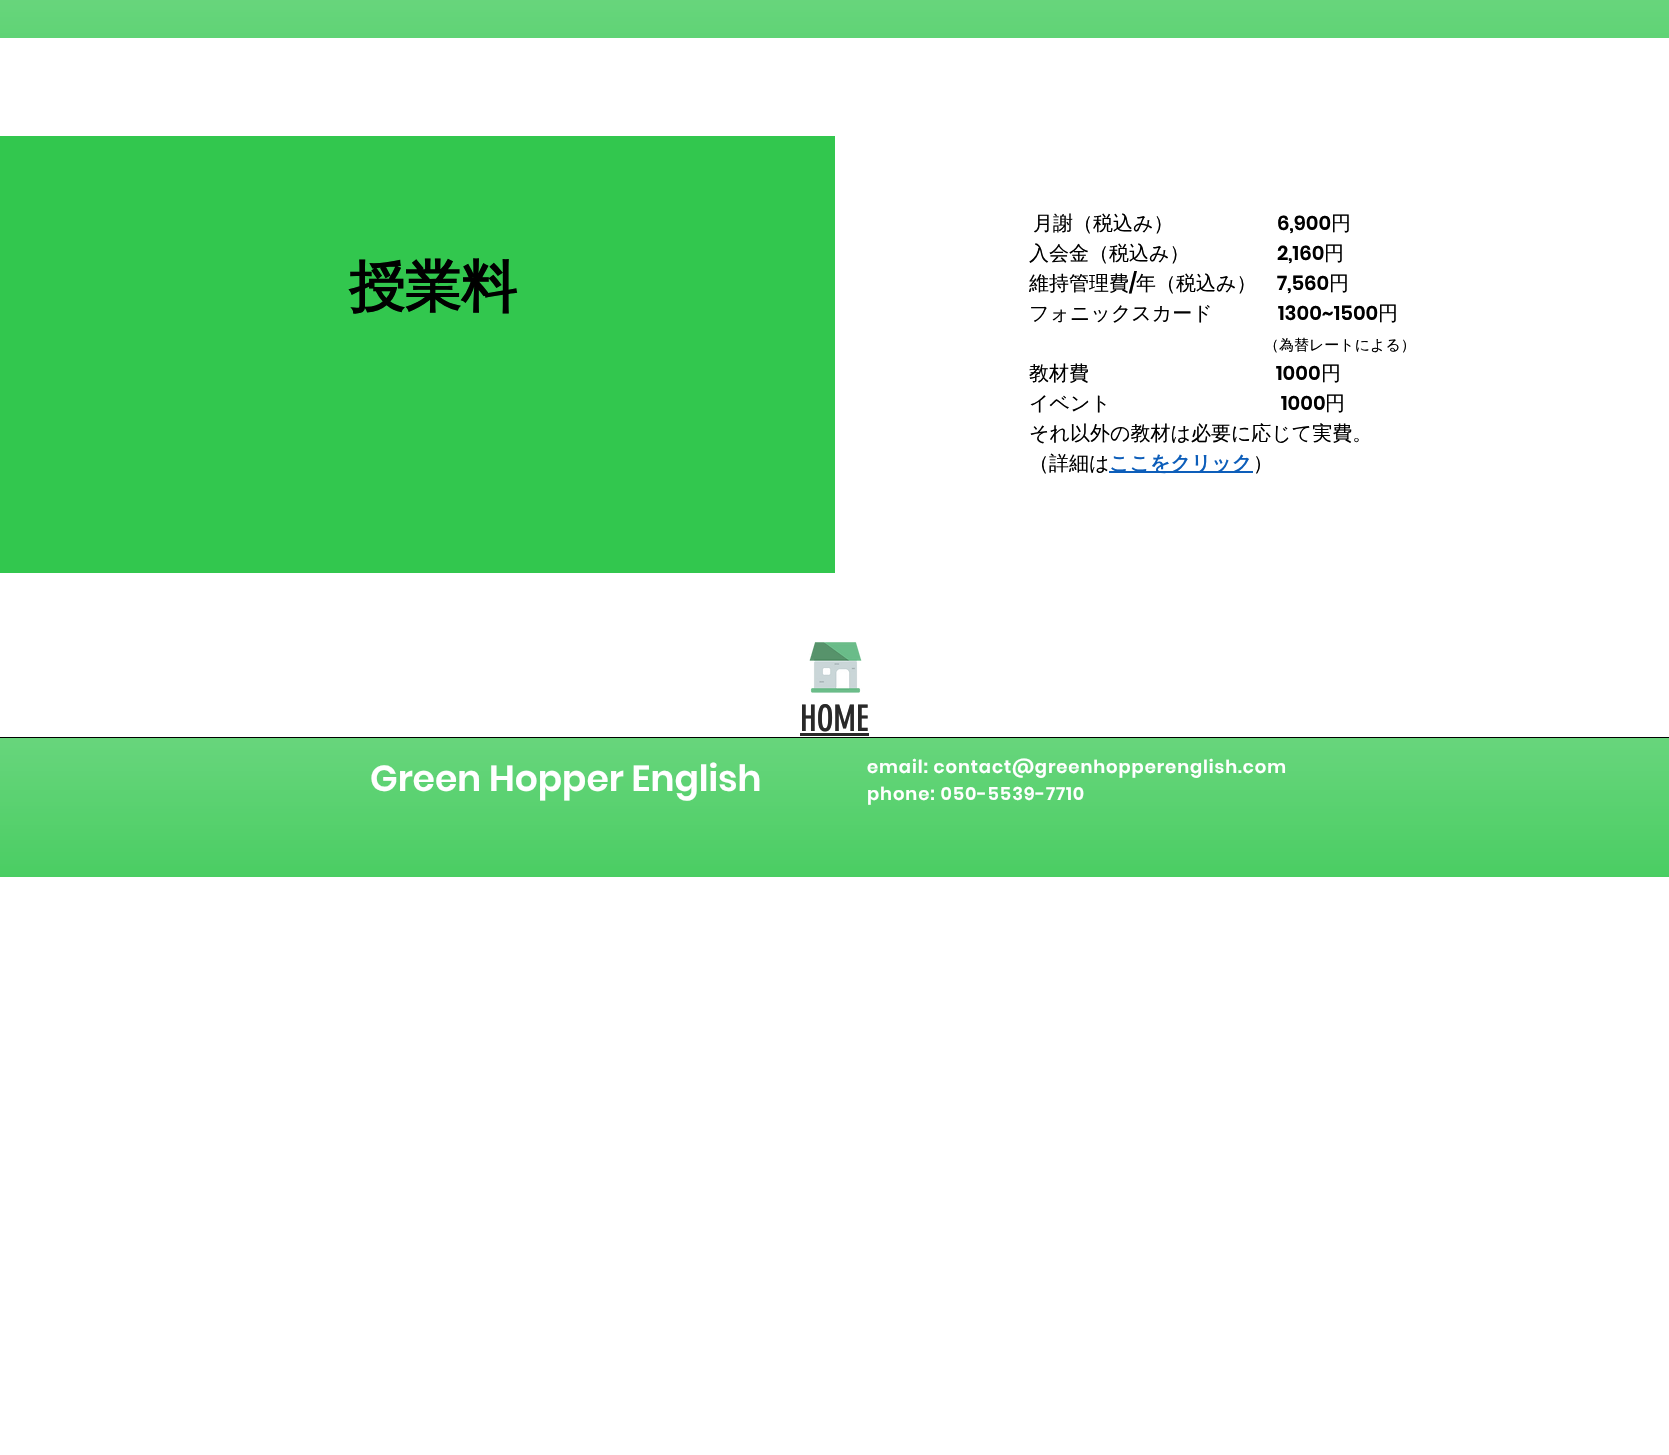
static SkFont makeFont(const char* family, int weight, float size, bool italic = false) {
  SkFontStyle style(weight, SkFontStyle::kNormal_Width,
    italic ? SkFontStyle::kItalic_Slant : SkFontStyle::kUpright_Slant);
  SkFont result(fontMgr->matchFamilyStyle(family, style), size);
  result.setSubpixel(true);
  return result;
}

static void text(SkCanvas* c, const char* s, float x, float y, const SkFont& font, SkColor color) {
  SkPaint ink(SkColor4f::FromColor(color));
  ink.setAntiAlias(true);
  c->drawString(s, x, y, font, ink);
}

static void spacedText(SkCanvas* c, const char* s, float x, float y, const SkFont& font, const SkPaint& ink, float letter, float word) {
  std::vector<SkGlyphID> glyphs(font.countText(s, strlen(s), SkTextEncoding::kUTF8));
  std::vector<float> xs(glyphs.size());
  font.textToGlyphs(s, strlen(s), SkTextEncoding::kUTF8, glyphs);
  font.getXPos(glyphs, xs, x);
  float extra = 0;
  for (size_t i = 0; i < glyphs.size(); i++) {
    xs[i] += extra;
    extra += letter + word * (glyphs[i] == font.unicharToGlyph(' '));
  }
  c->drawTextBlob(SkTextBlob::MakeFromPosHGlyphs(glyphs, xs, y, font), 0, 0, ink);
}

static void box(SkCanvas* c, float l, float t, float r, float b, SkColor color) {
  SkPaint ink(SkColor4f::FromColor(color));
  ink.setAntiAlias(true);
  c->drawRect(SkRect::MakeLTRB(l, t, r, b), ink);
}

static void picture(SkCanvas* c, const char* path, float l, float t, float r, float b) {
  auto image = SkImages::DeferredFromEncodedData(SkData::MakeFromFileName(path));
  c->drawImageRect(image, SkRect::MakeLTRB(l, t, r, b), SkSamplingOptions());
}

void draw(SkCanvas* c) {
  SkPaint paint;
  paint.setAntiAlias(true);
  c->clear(0xffffffff);
  box(c, 0, 0, 1669, 38, 0xff32c74e);
  picture(c, "img_01.png", 0, 0, 1669, 38);
  box(c, 0, 136, 835, 573, 0xff32c74e);
  SkFont face1 = makeFont("WenQuanYi Zen Hei", 700, 56);
  text(c, "授業料", 349, 306, face1, 0xff000000);
  SkFont face2 = makeFont("WenQuanYi Zen Hei", 500, 20);
  text(c, "月謝（税込み）", 1033, 230, face2, 0xff000000);
  SkFont face3 = makeFont("Poppins", 600, 20);
  text(c, "6,900", 1277, 230, face3, 0xff000000);
  text(c, "円", 1331, 230, face2, 0xff000000);
  text(c, "入会金（税込み）", 1029, 260, face2, 0xff000000);
  text(c, "2,160", 1277, 260, face3, 0xff000000);
  text(c, "円", 1324, 260, face2, 0xff000000);
  text(c, "維持管理費", 1029, 290, face2, 0xff000000);
  text(c, "/", 1129, 290, face3, 0xff000000);
  text(c, "年（税込み）", 1136, 290, face2, 0xff000000);
  text(c, "7,560", 1277, 290, face3, 0xff000000);
  text(c, "円", 1329, 290, face2, 0xff000000);
  text(c, "フォニックスカード", 1029, 320, face2, 0xff000000);
  text(c, "1300~1500", 1278, 320, face3, 0xff000000);
  text(c, "円", 1378, 320, face2, 0xff000000);
  SkFont face4 = makeFont("WenQuanYi Zen Hei", 500, 15);
  text(c, "（為替レートによる）", 1264, 350, face4, 0xff000000);
  text(c, "教材費", 1029, 380, face2, 0xff000000);
  text(c, "1000", 1276, 380, face3, 0xff000000);
  text(c, "円", 1321, 380, face2, 0xff000000);
  text(c, "イベント", 1029, 410, face2, 0xff000000);
  text(c, "1000", 1281, 410, face3, 0xff000000);
  text(c, "円", 1325, 410, face2, 0xff000000);
  text(c, "それ以外の教材は必要に応じて実費。", 1029, 440, face2, 0xff000000);
  text(c, "（詳細は", 1029, 470, face2, 0xff000000);
  box(c, 1109, 471, 1253, 473, 0xff0d5eba);
  SkFont face5 = makeFont("WenQuanYi Zen Hei", 700, 20);
  text(c, "ここをクリック", 1109, 470, face5, 0xff0d5eba);
  text(c, "）", 1253, 470, face2, 0xff000000);
  picture(c, "img_02.png", 809, 642, 862, 693);
  SkFont face6 = makeFont("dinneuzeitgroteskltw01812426", 400, 36);
  text(c, "HOME", 800, 731, face6, 0xff292929);
  box(c, 800, 733, 869, 736, 0xff292929);
  box(c, 0, 738, 1669, 877, 0xff32c74e);
  picture(c, "img_03.png", 0, 738, 1669, 877);
  box(c, 0, 737, 1669, 738, 0xff000000);
  SkFont face7 = makeFont("Poppins", 600, 36);
  text(c, "Green Hopper English", 370, 791, face7, 0xffffffff);
  SkFont face8 = makeFont("Poppins", 600, 18);
  paint.setColor(0xffffffff);
  spacedText(c, "email: contact@greenhopperenglish.com", 867, 773, face8, paint, 0.9f, 0);
  spacedText(c, "phone: 050-5539-7710", 867, 800, face8, paint, 0.9f, 0);
}
